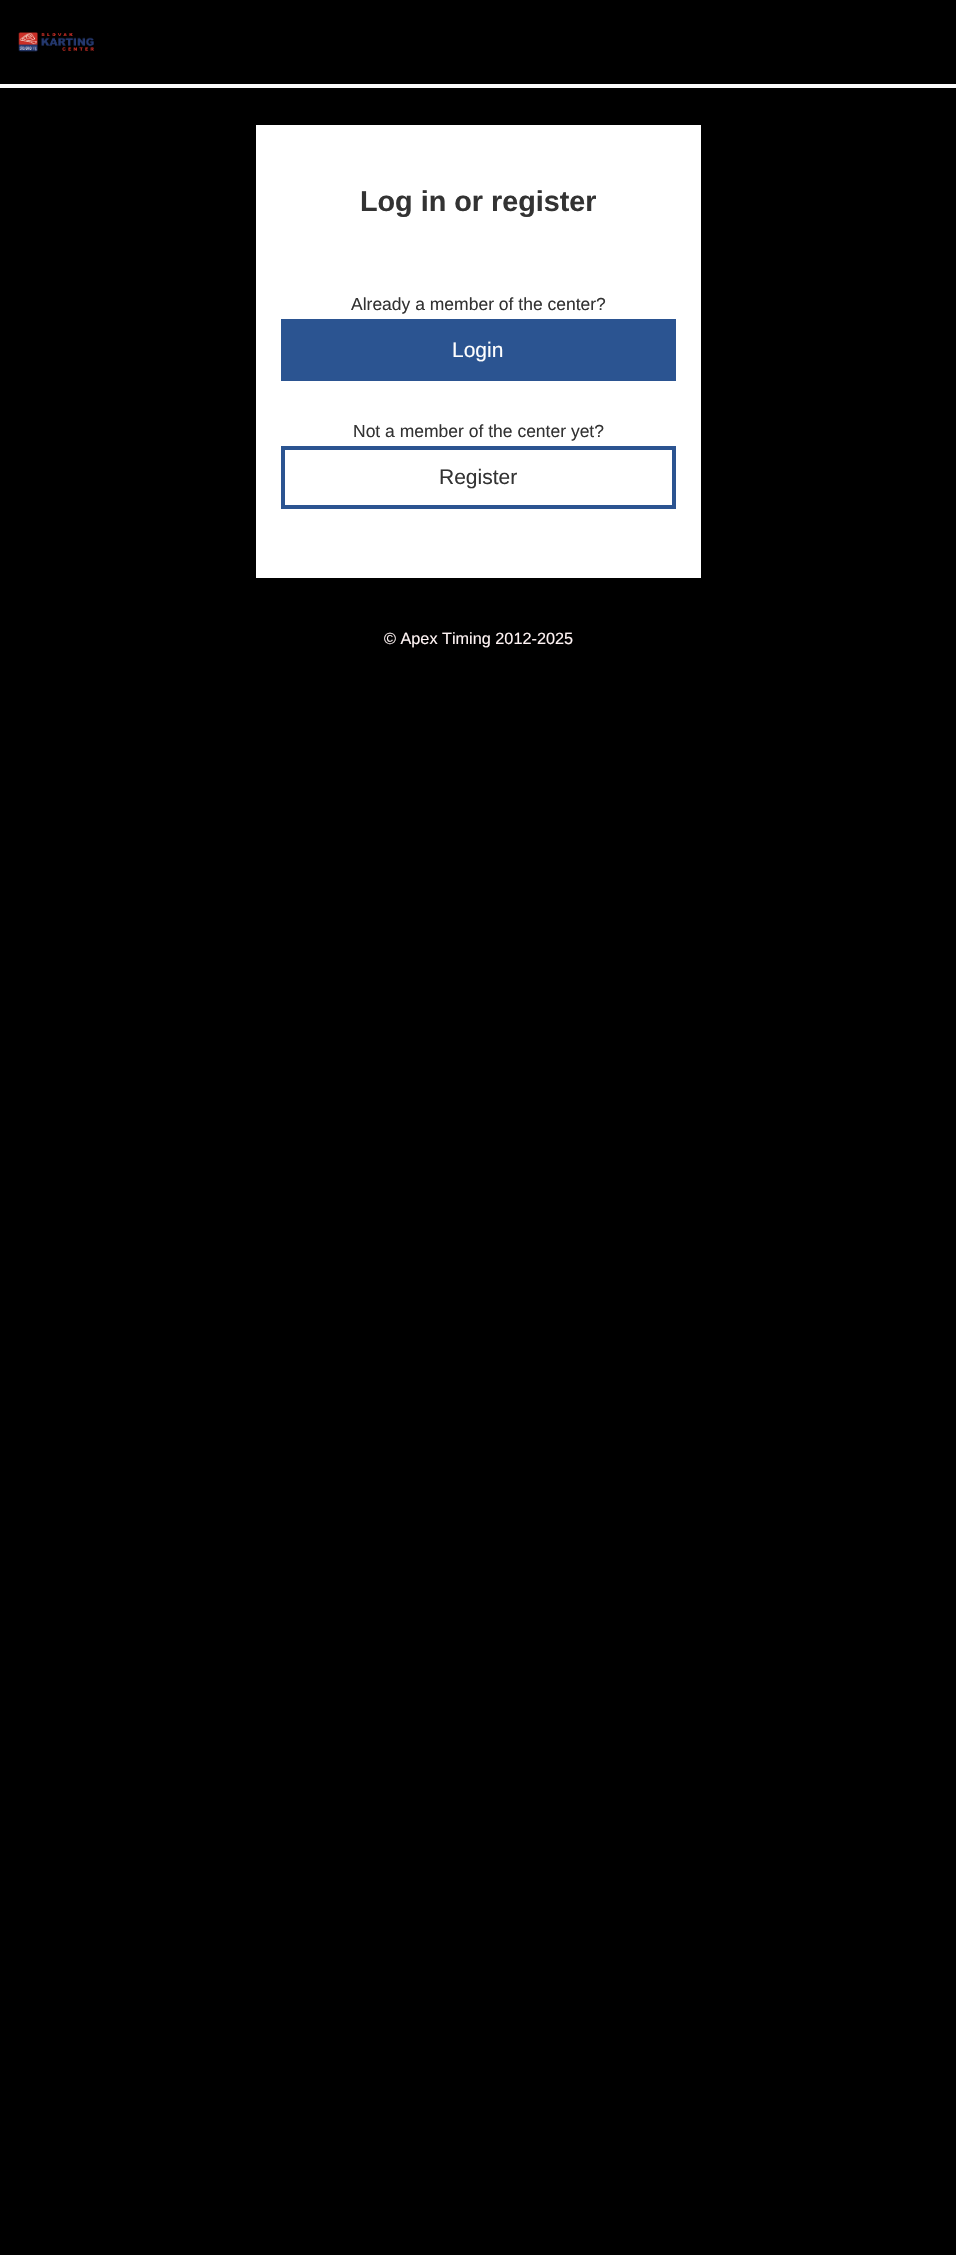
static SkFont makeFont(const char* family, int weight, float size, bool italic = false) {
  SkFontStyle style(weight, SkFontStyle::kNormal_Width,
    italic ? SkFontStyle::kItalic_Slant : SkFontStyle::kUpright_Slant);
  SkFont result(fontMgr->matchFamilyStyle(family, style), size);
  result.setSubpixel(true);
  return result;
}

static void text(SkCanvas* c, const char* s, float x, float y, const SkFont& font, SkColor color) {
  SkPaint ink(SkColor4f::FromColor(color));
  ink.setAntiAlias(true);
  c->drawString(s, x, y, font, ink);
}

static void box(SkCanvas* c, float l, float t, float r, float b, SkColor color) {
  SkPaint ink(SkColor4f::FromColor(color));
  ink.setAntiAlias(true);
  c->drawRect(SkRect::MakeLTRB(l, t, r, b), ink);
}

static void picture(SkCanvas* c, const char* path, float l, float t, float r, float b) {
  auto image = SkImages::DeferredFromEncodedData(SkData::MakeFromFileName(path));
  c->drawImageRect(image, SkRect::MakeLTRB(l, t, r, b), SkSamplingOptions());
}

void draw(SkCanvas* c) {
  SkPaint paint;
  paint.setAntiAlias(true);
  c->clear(0xff000000);
  box(c, 0, 84, 956, 88, 0xfffafafa);
  picture(c, "img_01.png", 18, 32, 94, 52);
  box(c, 256, 125, 701, 578, 0xffffffff);
  SkFont face1 = makeFont("Liberation Sans", 700, 28.75f);
  text(c, "Log in or register", 360, 211, face1, 0xff333333);
  SkFont face2 = makeFont("Liberation Sans", 400, 17.5f);
  text(c, "Already a member of the center?", 351, 310, face2, 0xff333333);
  box(c, 281, 319, 676, 381, 0xff2b5491);
  SkFont face3 = makeFont("Liberation Sans", 400, 21);
  text(c, "Login", 452, 357, face3, 0xffffffff);
  text(c, "Not a member of the center yet?", 353, 437, face2, 0xff333333);
  paint.setStyle(SkPaint::kStroke_Style);
  paint.setStrokeWidth(4);
  paint.setColor(0xff2b5491);
  c->drawRect(SkRect::MakeLTRB(283, 448, 674, 507), paint);
  text(c, "Register", 439, 484, face3, 0xff333333);
  SkFont face4 = makeFont("Liberation Sans", 400, 16.25f);
  text(c, "© Apex Timing 2012-2025", 384, 644, face4, 0xfffff4f4);
}
